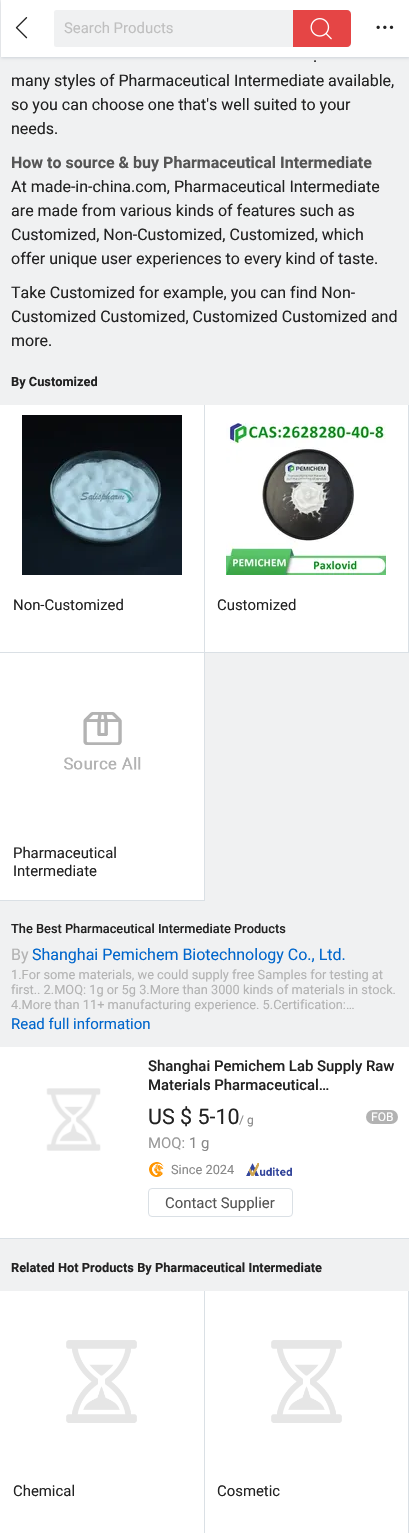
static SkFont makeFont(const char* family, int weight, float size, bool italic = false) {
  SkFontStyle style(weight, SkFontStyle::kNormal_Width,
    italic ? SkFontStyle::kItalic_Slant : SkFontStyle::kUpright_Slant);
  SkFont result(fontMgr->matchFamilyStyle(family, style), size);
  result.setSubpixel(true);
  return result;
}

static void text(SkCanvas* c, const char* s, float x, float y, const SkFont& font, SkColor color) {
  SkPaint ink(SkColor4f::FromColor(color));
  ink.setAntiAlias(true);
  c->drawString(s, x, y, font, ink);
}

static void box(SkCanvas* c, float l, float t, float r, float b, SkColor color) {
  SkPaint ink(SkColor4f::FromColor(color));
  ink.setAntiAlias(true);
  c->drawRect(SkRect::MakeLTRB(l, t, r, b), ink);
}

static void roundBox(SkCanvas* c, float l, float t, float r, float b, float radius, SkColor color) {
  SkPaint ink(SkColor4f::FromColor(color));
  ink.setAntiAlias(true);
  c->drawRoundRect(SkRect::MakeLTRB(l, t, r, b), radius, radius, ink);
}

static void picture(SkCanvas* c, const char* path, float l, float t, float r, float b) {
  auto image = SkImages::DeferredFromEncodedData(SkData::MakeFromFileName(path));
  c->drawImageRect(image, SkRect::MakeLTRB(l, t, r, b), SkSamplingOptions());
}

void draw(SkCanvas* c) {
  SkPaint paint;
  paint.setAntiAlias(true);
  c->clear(0xfff0f1f2);
  paint.setColor(0xffced3d9);
  paint.setMaskFilter(SkMaskFilter::MakeBlur(kNormal_SkBlurStyle, 1.5f));
  c->drawRect(SkRect::MakeLTRB(1, 1, 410, 58), paint);
  paint.setMaskFilter(nullptr);
  box(c, 1, 0, 409, 57, 0xffffffff);
  picture(c, "img_01.png", 15, 17, 28, 39);
  roundBox(c, 54, 10, 351, 47, 2.5f, 0xfff0f1f2);
  SkFont face1 = makeFont("Roboto", 400, 14.9f);
  text(c, "Search Products", 64, 33, face1, 0xffbfbfbf);
  paint.setColor(0xffe54545);
  c->drawPath(SkPathBuilder().moveTo(293, 10).lineTo(347, 10).cubicTo(349, 10, 351, 12, 351, 14).lineTo(351, 43).cubicTo(351, 45, 349, 47, 347, 47).lineTo(293, 47).close().detach(), paint);
  picture(c, "img_02.png", 310, 18, 332, 40);
  picture(c, "img_03.png", 376, 25, 394, 29);
  SkFont face2 = makeFont("Roboto", 400, 16);
  text(c, ".", 313, 62, face2, 0xff222222);
  text(c, "many styles of Pharmaceutical Intermediate available,", 11, 86, face2, 0xff222222);
  text(c, "so you can choose one that's well suited to your", 11, 110, face2, 0xff222222);
  text(c, "needs.", 11, 134, face2, 0xff222222);
  SkFont face3 = makeFont("Roboto", 700, 16);
  text(c, "How to source & buy Pharmaceutical Intermediate", 11, 168, face3, 0xff555555);
  text(c, "At made-in-china.com, Pharmaceutical Intermediate", 11, 192, face2, 0xff222222);
  text(c, "are made from various kinds of features such as", 11, 216, face2, 0xff222222);
  text(c, "Customized, Non-Customized, Customized, which", 11, 240, face2, 0xff222222);
  text(c, "offer unique user experiences to every kind of taste.", 11, 264, face2, 0xff222222);
  text(c, "Take Customized for example, you can find Non-", 11, 298, face2, 0xff222222);
  text(c, "Customized Customized, Customized Customized and", 11, 322, face2, 0xff222222);
  text(c, "more.", 11, 346, face2, 0xff222222);
  SkFont face4 = makeFont("Roboto", 700, 12.8f);
  text(c, "By Customized", 11, 386, face4, 0xff222222);
  box(c, 0, 405, 204, 652, 0xffffffff);
  box(c, 204, 405, 205, 901, 0xffdae0e5);
  box(c, 0, 652, 205, 653, 0xffdae0e5);
  picture(c, "img_04.png", 22, 415, 182, 575);
  text(c, "Non-Customized", 13, 610, face1, 0xff222222);
  box(c, 205, 405, 408, 652, 0xffffffff);
  box(c, 408, 405, 409, 653, 0xffdae0e5);
  box(c, 205, 652, 409, 653, 0xffdae0e5);
  picture(c, "img_05.png", 226, 423, 386, 575);
  text(c, "Customized", 217, 610, face1, 0xff222222);
  box(c, 0, 653, 204, 900, 0xffffffff);
  box(c, 0, 900, 205, 901, 0xffdae0e5);
  picture(c, "img_06.png", 64, 712, 141, 770);
  text(c, "Pharmaceutical", 13, 858, face1, 0xff222222);
  text(c, "Intermediate", 13, 876, face1, 0xff222222);
  SkFont face5 = makeFont("Roboto", 500, 12.8f);
  text(c, "The Best Pharmaceutical Intermediate Products", 11, 933, face5, 0xff222222);
  text(c, "By", 11, 960, face2, 0xffb3b3b3);
  text(c, "Shanghai Pemichem Biotechnology Co., Ltd.", 32, 960, face2, 0xff0066cc);
  SkFont face6 = makeFont("Roboto", 400, 12.8f);
  text(c, "1.For some materials, we could supply free Samples for testing at", 11, 979, face6, 0xffb3b3b3);
  text(c, "first.. 2.MOQ: 1g or 5g 3.More than 3000 kinds of materials in stock.", 11, 994, face6, 0xffb3b3b3);
  text(c, "4.More than 11+ manufacturing experience. 5.Certification:…", 11, 1009, face6, 0xffb3b3b3);
  SkFont face7 = makeFont("Roboto", 400, 15);
  text(c, "Read full information", 11, 1029, face7, 0xff0066cc);
  box(c, 0, 1047, 409, 1238, 0xffffffff);
  box(c, 0, 1238, 409, 1239, 0xffdae0e5);
  picture(c, "img_07.png", 46, 1088, 101, 1151);
  SkFont face8 = makeFont("Roboto", 500, 14.9f);
  text(c, "Shanghai Pemichem Lab Supply Raw", 148, 1071, face8, 0xff222222);
  text(c, "Materials Pharmaceutical…", 148, 1090, face8, 0xff222222);
  SkFont face9 = makeFont("Roboto", 400, 21.5f);
  text(c, "US $ 5-10", 148, 1124, face9, 0xff222222);
  SkFont face10 = makeFont("Roboto", 400, 12);
  text(c, "/ g", 239, 1124, face10, 0xff888888);
  roundBox(c, 366, 1110, 398, 1124, 7, 0xffb2b2b2);
  text(c, "FOB", 371, 1121, face10, 0xffffffff);
  text(c, "MOQ:", 148, 1148, face1, 0xff999999);
  text(c, "1 g", 189, 1148, face1, 0xff888888);
  picture(c, "img_08.png", 149, 1162, 164, 1177);
  text(c, "Since 2024", 171, 1174, face6, 0xff888888);
  picture(c, "img_09.png", 246, 1163, 292, 1176);
  paint.setStyle(SkPaint::kStroke_Style);
  paint.setStrokeWidth(1);
  paint.setColor(0xffdae0e5);
  c->drawRoundRect(SkRect::MakeLTRB(148.5f, 1188.5f, 292.5f, 1216.5f), 3.5f, 3.5f, paint);
  text(c, "Contact Supplier", 165, 1208, face1, 0xff555555);
  text(c, "Related Hot Products By Pharmaceutical Intermediate", 11, 1272, face4, 0xff222222);
  box(c, 0, 1291, 204, 1533, 0xffffffff);
  box(c, 204, 1291, 205, 1533, 0xffdae0e5);
  picture(c, "img_10.png", 66, 1340, 137, 1423);
  text(c, "Chemical", 13, 1496, face1, 0xff222222);
  box(c, 205, 1291, 408, 1533, 0xffffffff);
  box(c, 408, 1291, 409, 1533, 0xffdae0e5);
  picture(c, "img_10.png", 271, 1340, 342, 1423);
  text(c, "Cosmetic", 217, 1496, face1, 0xff222222);
}
